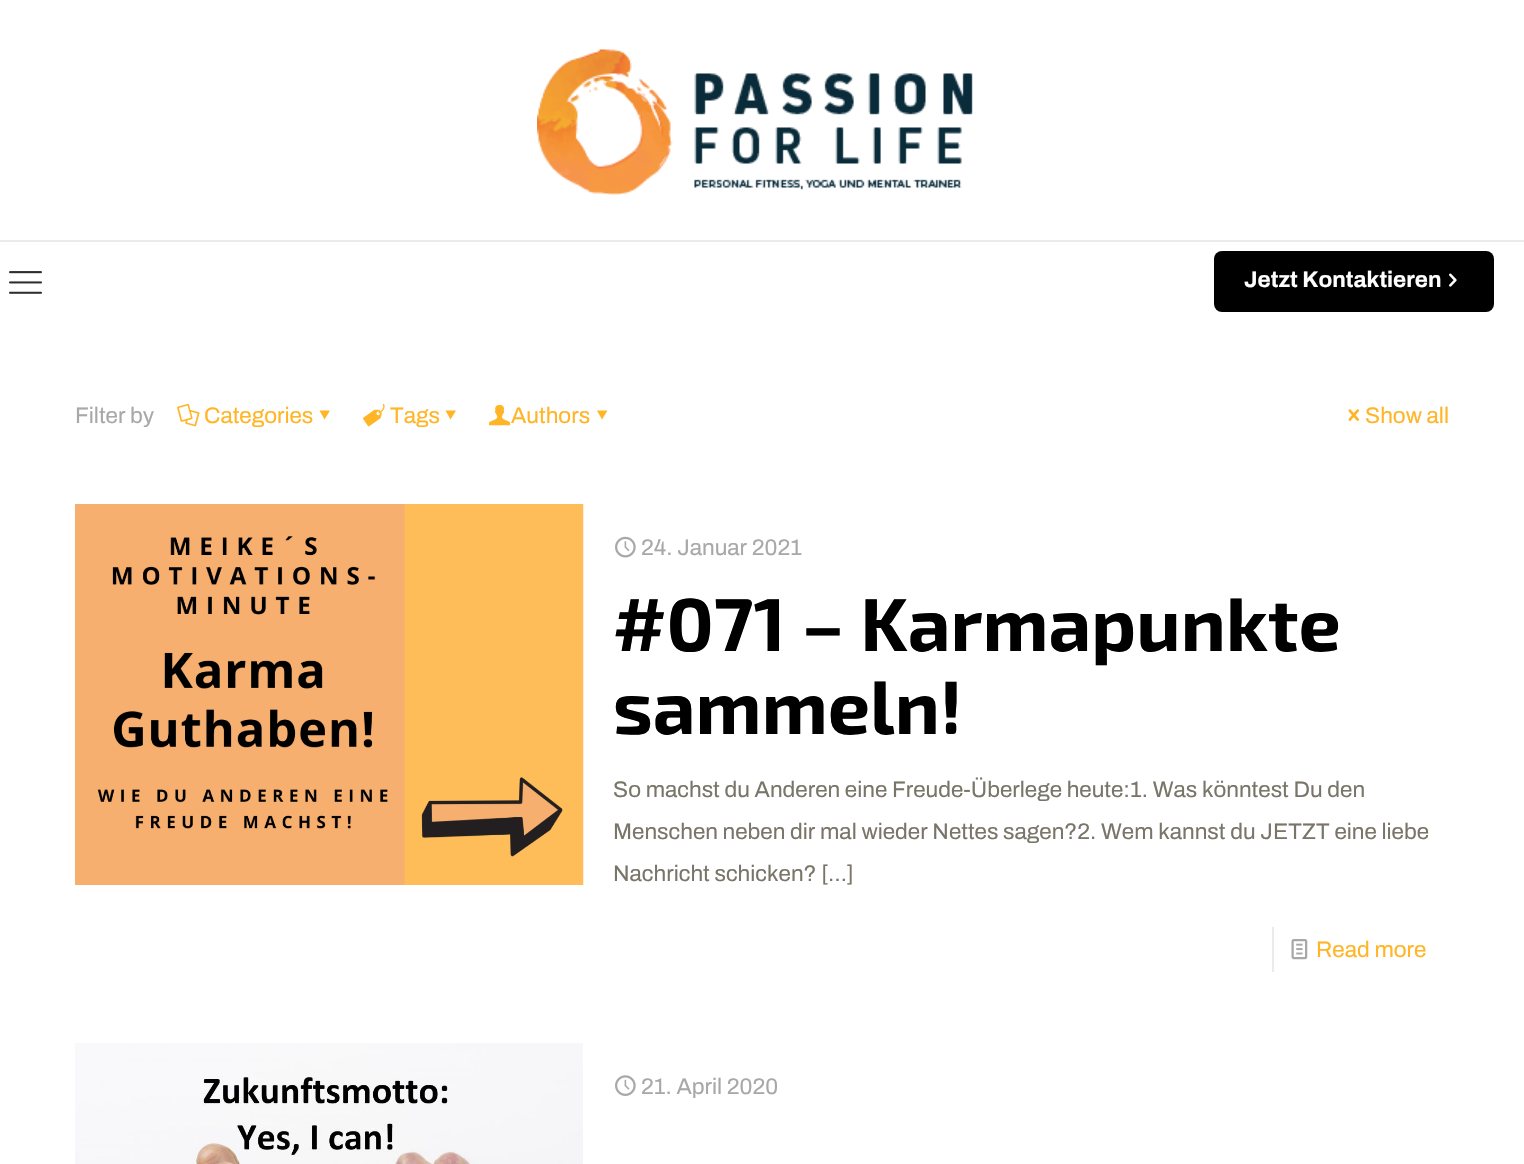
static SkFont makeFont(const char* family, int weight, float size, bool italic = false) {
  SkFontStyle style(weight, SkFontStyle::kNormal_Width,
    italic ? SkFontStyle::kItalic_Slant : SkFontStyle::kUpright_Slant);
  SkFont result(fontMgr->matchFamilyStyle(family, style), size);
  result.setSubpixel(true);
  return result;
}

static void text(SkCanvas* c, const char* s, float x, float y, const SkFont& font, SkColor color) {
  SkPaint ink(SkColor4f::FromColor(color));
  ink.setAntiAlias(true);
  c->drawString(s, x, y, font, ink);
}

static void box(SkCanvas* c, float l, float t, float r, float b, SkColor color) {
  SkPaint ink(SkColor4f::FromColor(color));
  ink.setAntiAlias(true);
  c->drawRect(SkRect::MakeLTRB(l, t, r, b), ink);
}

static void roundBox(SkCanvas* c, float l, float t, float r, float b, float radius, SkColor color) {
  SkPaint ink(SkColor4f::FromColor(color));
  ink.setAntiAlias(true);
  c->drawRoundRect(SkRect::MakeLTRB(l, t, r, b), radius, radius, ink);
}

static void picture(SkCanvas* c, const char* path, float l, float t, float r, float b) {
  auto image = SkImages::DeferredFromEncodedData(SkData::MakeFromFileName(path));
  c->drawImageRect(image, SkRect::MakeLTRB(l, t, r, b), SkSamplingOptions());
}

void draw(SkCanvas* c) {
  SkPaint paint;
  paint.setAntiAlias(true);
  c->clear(0xffffffff);
  box(c, 0, 240, 1524, 242, 0xffebebeb);
  picture(c, "img_01.png", 537, 49, 973, 195);
  picture(c, "img_02.png", 9, 271, 42, 294);
  roundBox(c, 1214, 251, 1494, 312, 8, 0xff000000);
  SkFont face1 = makeFont("Archivo", 700, 22.5f);
  text(c, "Jetzt Kontaktieren", 1244, 287, face1, 0xffffffff);
  picture(c, "img_03.png", 1449, 273, 1457, 287);
  SkFont face2 = makeFont("Archivo", 400, 22.5f);
  text(c, "Filter by", 75, 423, face2, 0xffa8a8a8);
  picture(c, "img_04.png", 177, 403, 200, 427);
  text(c, "Categories", 204, 423, face2, 0xffffb526);
  paint.setColor(0xffffb526);
  c->drawPath(SkPathBuilder().moveTo(330, 410.5f).lineTo(324.5f, 419.5f).lineTo(319.5f, 410.5f).close().detach(), paint);
  picture(c, "img_05.png", 363, 403, 385, 427);
  text(c, "Tags", 390, 423, face2, 0xffffb526);
  c->drawPath(SkPathBuilder().moveTo(456, 410.5f).lineTo(450.5f, 419.5f).lineTo(445.5f, 410.5f).close().detach(), paint);
  picture(c, "img_06.png", 489, 405, 511, 426);
  text(c, "Authors", 511, 423, face2, 0xffffb526);
  c->drawPath(SkPathBuilder().moveTo(607.5f, 410.5f).lineTo(602, 419.5f).lineTo(597, 410.5f).close().detach(), paint);
  picture(c, "img_07.png", 1348, 409, 1360, 421);
  text(c, "Show all", 1365, 423, face2, 0xffffb526);
  picture(c, "img_08.png", 75, 504, 584, 885);
  picture(c, "img_09.png", 615, 536, 636, 558);
  text(c, "24. Januar 2021", 641, 555, face2, 0xffa8a8a8);
  SkFont face3 = makeFont("Exo 2", 700, 75);
  text(c, "#071 – Karmapunkte", 613, 651, face3, 0xff000000);
  text(c, "sammeln!", 613, 734, face3, 0xff000000);
  text(c, "So machst du Anderen eine Freude-Überlege heute:1. Was könntest Du den", 613, 797, face2, 0xff797568);
  text(c, "Menschen neben dir mal wieder Nettes sagen?2. Wem kannst du JETZT eine liebe", 613, 839, face2, 0xff797568);
  text(c, "Nachricht schicken? […]", 613, 881, face2, 0xff797568);
  box(c, 1272, 927, 1274, 972, 0xffebebeb);
  picture(c, "img_10.png", 1291, 939, 1308, 960);
  text(c, "Read more", 1316, 957, face2, 0xffffb526);
  picture(c, "img_11.png", 75, 1043, 583, 1164);
  picture(c, "img_12.png", 615, 1075, 636, 1096);
  text(c, "21. April 2020", 641, 1094, face2, 0xffa8a8a8);
}
